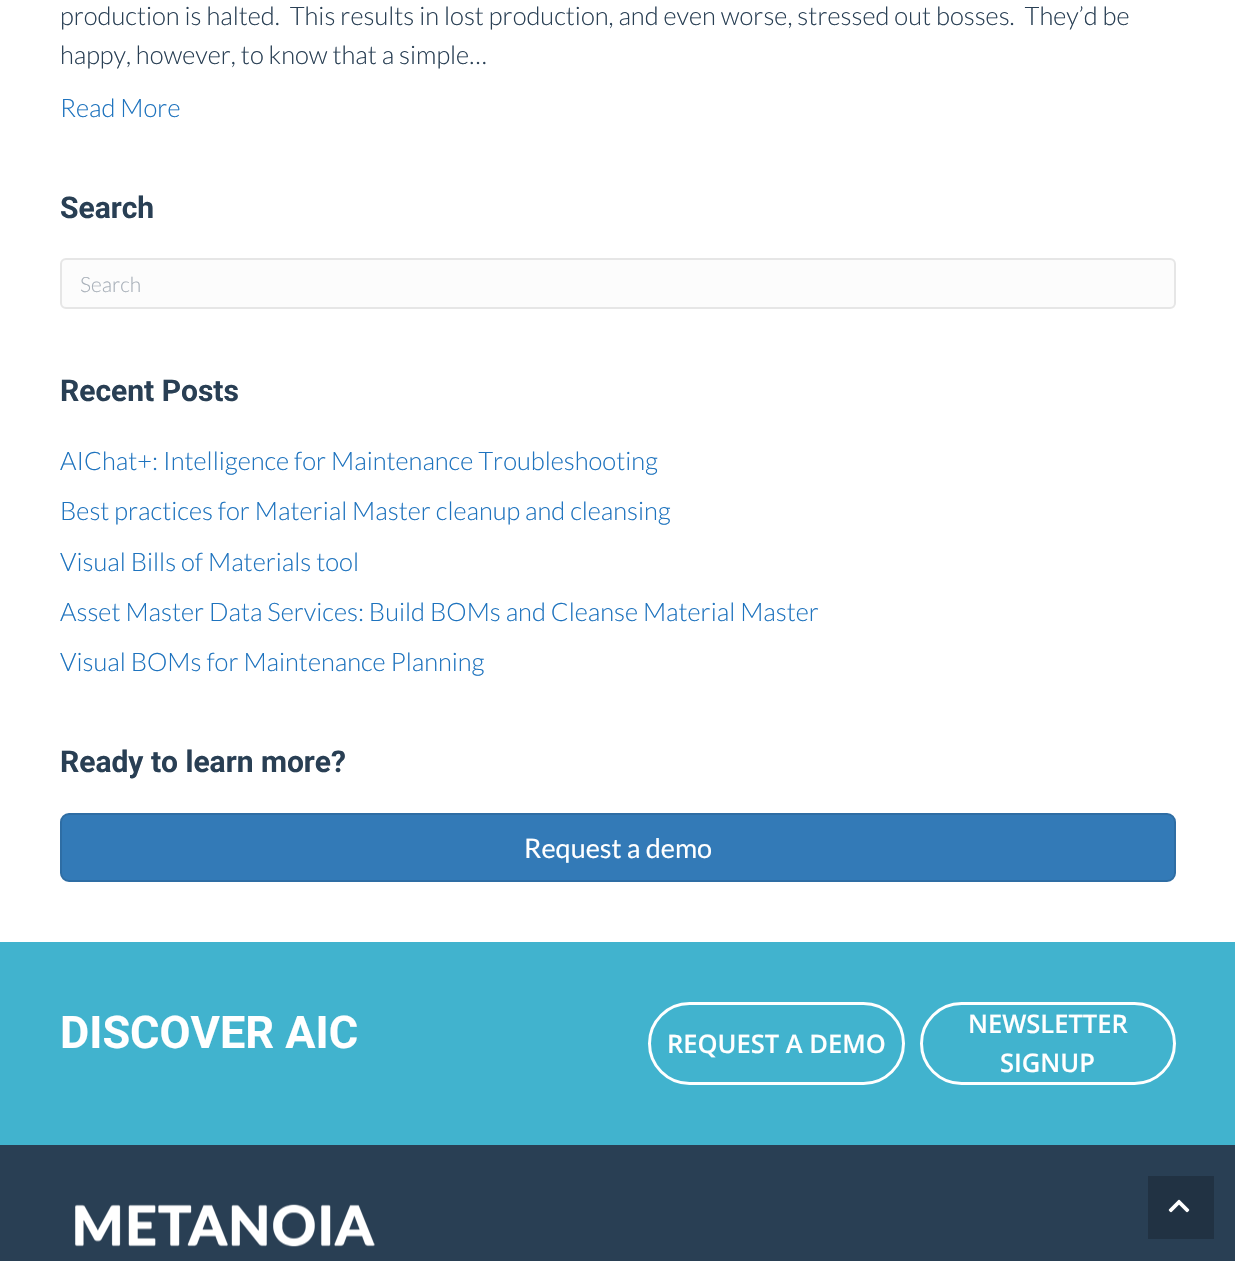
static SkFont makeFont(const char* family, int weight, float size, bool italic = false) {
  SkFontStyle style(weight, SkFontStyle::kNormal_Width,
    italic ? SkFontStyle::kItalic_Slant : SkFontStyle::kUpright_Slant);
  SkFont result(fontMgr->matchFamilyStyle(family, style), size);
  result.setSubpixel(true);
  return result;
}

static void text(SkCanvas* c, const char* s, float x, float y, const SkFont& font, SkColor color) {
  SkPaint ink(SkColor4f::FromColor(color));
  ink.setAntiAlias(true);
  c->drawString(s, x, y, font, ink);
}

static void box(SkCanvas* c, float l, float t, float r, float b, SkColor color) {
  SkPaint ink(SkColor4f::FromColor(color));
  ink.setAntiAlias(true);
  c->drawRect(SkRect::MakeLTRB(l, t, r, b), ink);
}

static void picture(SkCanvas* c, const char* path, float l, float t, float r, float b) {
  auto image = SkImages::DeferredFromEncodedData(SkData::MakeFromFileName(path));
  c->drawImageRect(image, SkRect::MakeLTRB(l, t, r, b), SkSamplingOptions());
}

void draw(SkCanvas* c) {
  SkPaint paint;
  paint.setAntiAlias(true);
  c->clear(0xffffffff);
  SkFont face1 = makeFont("Lato", 300, 25.5f);
  text(c, "production is halted.  This results in lost production, and even worse, stressed out bosses.  They’d be", 60, 25, face1, 0xff293f54);
  text(c, "happy, however, to know that a simple…", 60, 64, face1, 0xff293f54);
  text(c, "Read More", 60, 117, face1, 0xff1e73be);
  SkFont face2 = makeFont("Roboto", 700, 30);
  text(c, "Search", 60, 218, face2, 0xff293f54);
  paint.setColor(0xfffcfcfc);
  c->drawRoundRect(SkRect::MakeLTRB(61, 259, 1175, 308), 5, 5, paint);
  paint.setStyle(SkPaint::kStroke_Style);
  paint.setStrokeWidth(2);
  paint.setColor(0xffe6e6e6);
  c->drawRoundRect(SkRect::MakeLTRB(61, 259, 1175, 308), 5, 5, paint);
  SkFont face3 = makeFont("Lato", 300, 21);
  text(c, "Search", 80, 292, face3, 0xffa8b0b9);
  text(c, "Recent Posts", 60, 401, face2, 0xff293f54);
  text(c, "AIChat+: Intelligence for Maintenance Troubleshooting", 60, 470, face1, 0xff1e73be);
  text(c, "Best practices for Material Master cleanup and cleansing", 60, 520, face1, 0xff1e73be);
  text(c, "Visual Bills of Materials tool", 60, 571, face1, 0xff1e73be);
  text(c, "Asset Master Data Services: Build BOMs and Cleanse Material Master", 60, 621, face1, 0xff1e73be);
  text(c, "Visual BOMs for Maintenance Planning", 60, 671, face1, 0xff1e73be);
  text(c, "Ready to learn more?", 60, 772, face2, 0xff293f54);
  paint.setStyle(SkPaint::kFill_Style);
  paint.setColor(0xff337ab7);
  c->drawRoundRect(SkRect::MakeLTRB(61, 814, 1175, 881), 8, 8, paint);
  paint.setStyle(SkPaint::kStroke_Style);
  paint.setColor(0xff2e6da4);
  c->drawRoundRect(SkRect::MakeLTRB(61, 814, 1175, 881), 8, 8, paint);
  SkFont face4 = makeFont("Lato", 400, 27);
  text(c, "Request a demo", 524, 858, face4, 0xffffffff);
  box(c, 0, 942, 1235, 1145, 0xff41b3ce);
  SkFont face5 = makeFont("Roboto", 700, 45);
  text(c, "DISCOVER AIC", 60, 1048, face5, 0xffffffff);
  paint.setStrokeWidth(3);
  paint.setColor(0xffffffff);
  c->drawRoundRect(SkRect::MakeLTRB(649.5f, 1003.5f, 903.5f, 1083.5f), 40, 40, paint);
  SkFont face6 = makeFont("Open Sans", 600, 25.5f);
  text(c, "REQUEST A DEMO", 667, 1053, face6, 0xffffffff);
  c->drawRoundRect(SkRect::MakeLTRB(921.5f, 1003.5f, 1174.5f, 1083.5f), 40, 40, paint);
  text(c, "NEWSLETTER", 968, 1033, face6, 0xffffffff);
  text(c, "SIGNUP", 1000, 1072, face6, 0xffffffff);
  box(c, 0, 1145, 1235, 1261, 0xff293f54);
  picture(c, "img_01.png", 75, 1204, 375, 1247);
  box(c, 1148, 1176, 1214, 1239, 0xff213243);
  picture(c, "img_02.png", 1168, 1199, 1190, 1213);
}
